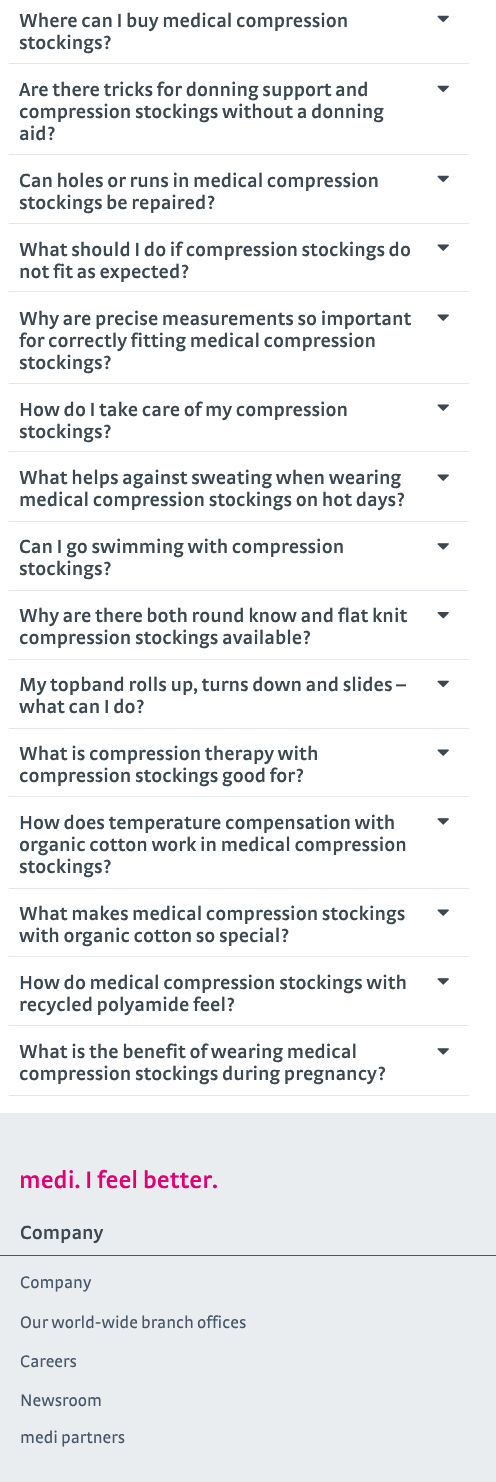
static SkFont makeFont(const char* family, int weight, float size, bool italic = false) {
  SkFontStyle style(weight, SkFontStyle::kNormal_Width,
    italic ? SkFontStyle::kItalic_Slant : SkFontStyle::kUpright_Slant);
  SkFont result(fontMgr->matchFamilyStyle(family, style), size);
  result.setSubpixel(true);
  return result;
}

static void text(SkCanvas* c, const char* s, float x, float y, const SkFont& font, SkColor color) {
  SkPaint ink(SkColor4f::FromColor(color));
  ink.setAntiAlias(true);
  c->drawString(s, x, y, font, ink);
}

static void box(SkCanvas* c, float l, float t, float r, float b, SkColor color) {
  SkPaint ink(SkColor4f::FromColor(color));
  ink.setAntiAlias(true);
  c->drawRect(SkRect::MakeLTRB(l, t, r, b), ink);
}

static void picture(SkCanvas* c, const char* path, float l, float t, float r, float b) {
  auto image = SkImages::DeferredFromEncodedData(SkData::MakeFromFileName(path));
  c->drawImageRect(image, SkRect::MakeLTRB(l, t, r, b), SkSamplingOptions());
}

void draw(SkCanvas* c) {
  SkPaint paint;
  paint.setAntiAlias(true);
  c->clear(0xffffffff);
  SkFont face1 = makeFont("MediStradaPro", 600, 20);
  text(c, "Where can I buy medical compression", 19, 27, face1, 0xff3b4851);
  picture(c, "img_01.png", 437, 15, 449, 23);
  text(c, "stockings?", 19, 49, face1, 0xff3b4851);
  box(c, 9, 63, 469, 64, 0xffe4e7ed);
  text(c, "Are there tricks for donning support and", 19, 96, face1, 0xff3b4851);
  picture(c, "img_01.png", 437, 85, 449, 93);
  text(c, "compression stockings without a donning", 19, 118, face1, 0xff3b4851);
  text(c, "aid?", 19, 140, face1, 0xff3b4851);
  box(c, 9, 154, 469, 155, 0xffe4e7ed);
  text(c, "Can holes or runs in medical compression", 19, 187, face1, 0xff3b4851);
  picture(c, "img_01.png", 437, 175, 449, 183);
  text(c, "stockings be repaired?", 19, 209, face1, 0xff3b4851);
  box(c, 9, 223, 469, 224, 0xffe4e7ed);
  text(c, "What should I do if compression stockings do", 19, 256, face1, 0xff3b4851);
  picture(c, "img_02.png", 437, 244, 449, 251);
  text(c, "not fit as expected?", 19, 278, face1, 0xff3b4851);
  box(c, 9, 291, 469, 292, 0xffe4e7ed);
  text(c, "Why are precise measurements so important", 19, 325, face1, 0xff3b4851);
  picture(c, "img_02.png", 437, 314, 449, 321);
  text(c, "for correctly fitting medical compression", 19, 347, face1, 0xff3b4851);
  text(c, "stockings?", 19, 369, face1, 0xff3b4851);
  box(c, 9, 383, 469, 384, 0xffe4e7ed);
  text(c, "How do I take care of my compression", 19, 416, face1, 0xff3b4851);
  picture(c, "img_02.png", 437, 404, 449, 411);
  text(c, "stockings?", 19, 438, face1, 0xff3b4851);
  box(c, 9, 451, 469, 452, 0xffe4e7ed);
  text(c, "What helps against sweating when wearing", 19, 484, face1, 0xff3b4851);
  picture(c, "img_02.png", 437, 474, 449, 481);
  text(c, "medical compression stockings on hot days?", 19, 506, face1, 0xff3b4851);
  box(c, 9, 521, 469, 522, 0xffe4e7ed);
  text(c, "Can I go swimming with compression", 19, 553, face1, 0xff3b4851);
  picture(c, "img_03.png", 437, 543, 449, 550);
  text(c, "stockings?", 19, 575, face1, 0xff3b4851);
  box(c, 9, 590, 469, 591, 0xffe4e7ed);
  text(c, "Why are there both round know and flat knit", 19, 622, face1, 0xff3b4851);
  picture(c, "img_04.png", 437, 612, 449, 619);
  text(c, "compression stockings available?", 19, 644, face1, 0xff3b4851);
  box(c, 9, 659, 469, 660, 0xffe4e7ed);
  text(c, "My topband rolls up, turns down and slides –", 19, 691, face1, 0xff3b4851);
  picture(c, "img_01.png", 437, 680, 449, 688);
  text(c, "what can I do?", 19, 713, face1, 0xff3b4851);
  box(c, 9, 728, 469, 729, 0xffe4e7ed);
  text(c, "What is compression therapy with", 19, 760, face1, 0xff3b4851);
  picture(c, "img_02.png", 437, 749, 449, 756);
  text(c, "compression stockings good for?", 19, 782, face1, 0xff3b4851);
  box(c, 9, 796, 469, 797, 0xffe4e7ed);
  text(c, "How does temperature compensation with", 19, 829, face1, 0xff3b4851);
  picture(c, "img_03.png", 437, 818, 449, 825);
  text(c, "organic cotton work in medical compression", 19, 851, face1, 0xff3b4851);
  text(c, "stockings?", 19, 873, face1, 0xff3b4851);
  box(c, 9, 888, 469, 889, 0xffe4e7ed);
  text(c, "What makes medical compression stockings", 19, 920, face1, 0xff3b4851);
  picture(c, "img_02.png", 437, 909, 449, 916);
  text(c, "with organic cotton so special?", 19, 942, face1, 0xff3b4851);
  box(c, 9, 956, 469, 957, 0xffe4e7ed);
  text(c, "How do medical compression stockings with", 19, 989, face1, 0xff3b4851);
  picture(c, "img_03.png", 437, 978, 449, 985);
  text(c, "recycled polyamide feel?", 19, 1011, face1, 0xff3b4851);
  box(c, 9, 1095, 469, 1096, 0xffe4e7ed);
  box(c, 9, 1025, 469, 1026, 0xffe4e7ed);
  text(c, "What is the benefit of wearing medical", 19, 1058, face1, 0xff3b4851);
  picture(c, "img_03.png", 437, 1048, 449, 1055);
  text(c, "compression stockings during pregnancy?", 19, 1080, face1, 0xff3b4851);
  box(c, 0, 1113, 496, 1482, 0xffe9edf0);
  SkFont face2 = makeFont("MediStradaPro", 600, 25);
  text(c, "medi. I feel better.", 19, 1188, face2, 0xffe20074);
  box(c, 0, 1255, 496, 1256, 0xff48586a);
  text(c, "Company", 20, 1239, face1, 0xff3b4851);
  SkFont face3 = makeFont("MediStradaPro", 400, 17.5f);
  text(c, "Company", 20, 1288, face3, 0xff48586a);
  text(c, "Our world-wide branch offices", 20, 1328, face3, 0xff48586a);
  text(c, "Careers", 20, 1367, face3, 0xff48586a);
  text(c, "Newsroom", 20, 1406, face3, 0xff48586a);
  text(c, "medi partners", 20, 1443, face3, 0xff48586a);
}
